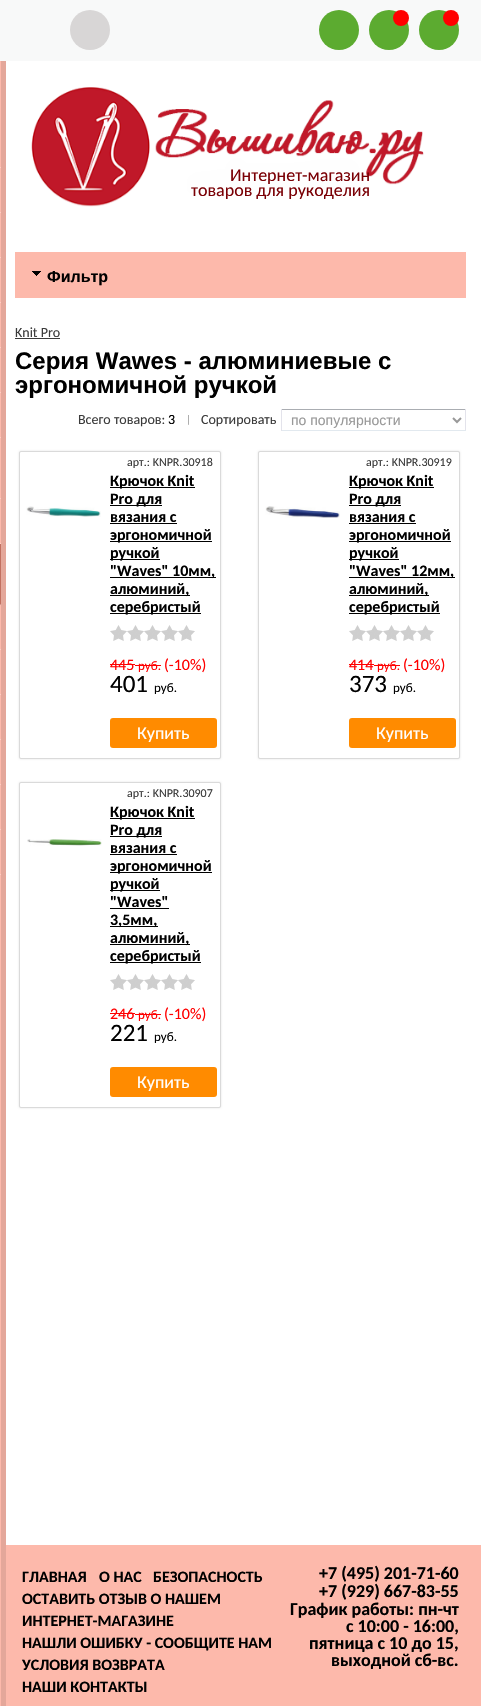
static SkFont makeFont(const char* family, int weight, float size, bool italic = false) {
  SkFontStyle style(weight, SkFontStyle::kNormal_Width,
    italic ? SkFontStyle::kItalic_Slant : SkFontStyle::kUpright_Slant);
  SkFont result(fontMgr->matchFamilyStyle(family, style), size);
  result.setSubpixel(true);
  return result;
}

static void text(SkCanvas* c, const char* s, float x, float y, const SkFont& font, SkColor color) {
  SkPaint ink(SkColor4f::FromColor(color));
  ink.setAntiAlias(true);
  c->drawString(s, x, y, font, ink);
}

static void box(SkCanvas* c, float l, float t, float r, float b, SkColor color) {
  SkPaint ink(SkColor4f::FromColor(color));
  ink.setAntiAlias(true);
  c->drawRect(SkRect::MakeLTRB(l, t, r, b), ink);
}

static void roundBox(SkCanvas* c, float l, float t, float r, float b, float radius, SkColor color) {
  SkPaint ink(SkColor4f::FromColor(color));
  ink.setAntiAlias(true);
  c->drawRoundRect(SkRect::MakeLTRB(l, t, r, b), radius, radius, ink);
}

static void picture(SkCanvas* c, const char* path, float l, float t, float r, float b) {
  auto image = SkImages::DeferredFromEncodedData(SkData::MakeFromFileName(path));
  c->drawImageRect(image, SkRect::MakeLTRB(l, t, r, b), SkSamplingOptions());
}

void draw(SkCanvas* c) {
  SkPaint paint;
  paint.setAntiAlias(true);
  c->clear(0xffffffff);
  box(c, 0, 61, 1, 1706, 0xfffdb9ab);
  box(c, 1, 61, 6, 1706, 0xffe4a79a);
  box(c, 0, 167, 1, 168, 0xfffecec4);
  box(c, 0, 212, 1, 213, 0xfffecec4);
  box(c, 0, 257, 1, 258, 0xfffecec4);
  box(c, 0, 302, 1, 303, 0xfffecec4);
  box(c, 0, 347, 1, 348, 0xfffecec4);
  box(c, 0, 392, 1, 393, 0xfffecec4);
  box(c, 0, 437, 1, 438, 0xfffecec4);
  box(c, 0, 498, 1, 499, 0xfffecec4);
  box(c, 0, 543, 1, 544, 0xfffecec4);
  box(c, 0, 544, 1, 605, 0xffc27060);
  box(c, 0, 604, 1, 605, 0xffd49b90);
  box(c, 0, 649, 1, 650, 0xfffecec4);
  box(c, 0, 694, 1, 695, 0xfffecec4);
  box(c, 0, 739, 1, 740, 0xfffecec4);
  box(c, 0, 784, 1, 785, 0xfffecec4);
  box(c, 0, 829, 1, 830, 0xfffecec4);
  box(c, 0, 874, 1, 875, 0xfffecec4);
  box(c, 0, 0, 481, 61, 0xfff8f9f9);
  paint.setColor(0xffd8d6d6);
  c->drawCircle(90, 30, 20, paint);
  paint.setColor(0xff5cab30);
  c->drawCircle(339, 30, 20, paint);
  c->drawCircle(389, 30, 20, paint);
  paint.setColor(0xffff0000);
  c->drawCircle(401, 18, 8, paint);
  paint.setColor(0xff5cab30);
  c->drawCircle(439, 30, 20, paint);
  paint.setColor(0xffff0000);
  c->drawCircle(451, 18, 8, paint);
  picture(c, "img_01.png", 31, 87, 424, 207);
  SkFont face1 = makeFont("Carlito", 400, 18);
  text(c, "Интернет-магазин", 230, 181, face1, 0xff7a0005);
  text(c, "товаров для рукоделия", 191, 196, face1, 0xff7a0005);
  box(c, 15, 252, 466, 298, 0xfffdb9ab);
  picture(c, "img_02.png", 32, 271, 41, 276);
  SkFont face2 = makeFont("Liberation Sans", 700, 16);
  text(c, "Фильтр", 47, 282, face2, 0xff000000);
  SkFont face3 = makeFont("Carlito", 400, 14);
  text(c, "Knit Pro", 15, 337, face3, 0xff3b3b3b);
  box(c, 15, 338, 60, 339, 0xff3b3b3b);
  SkFont face4 = makeFont("Liberation Sans", 700, 24);
  text(c, "Серия Wawes - алюминиевые с", 15, 369, face4, 0xff000000);
  text(c, "эргономичной ручкой", 15, 393, face4, 0xff000000);
  text(c, "Всего товаров:", 78, 424, face3, 0xff3b3b3b);
  text(c, "3", 168, 424, face3, 0xff000000);
  SkFont face5 = makeFont("Carlito", 400, 11);
  text(c, "|", 186, 423, face5, 0xff999999);
  text(c, "Сортировать", 201, 424, face3, 0xff3b3b3b);
  box(c, 281, 409, 466, 410, 0xffaaadb2);
  box(c, 465, 409, 466, 431, 0xffe3e3eb);
  box(c, 281, 430, 466, 431, 0xffe2e9ef);
  box(c, 281, 409, 282, 431, 0xffe3e3eb);
  paint.setStyle(SkPaint::kStroke_Style);
  paint.setStrokeWidth(2);
  paint.setColor(0xff999999);
  c->drawPath(SkPathBuilder().moveTo(453, 418).lineTo(457, 422).lineTo(461, 418).detach(), paint);
  SkFont face6 = makeFont("Liberation Sans", 400, 14);
  text(c, "по популярности", 291, 425, face6, 0xff999999);
  paint.setStyle(SkPaint::kFill_Style);
  paint.setColor(0xffdddddd);
  paint.setMaskFilter(SkMaskFilter::MakeBlur(kNormal_SkBlurStyle, 1));
  c->drawRoundRect(SkRect::MakeLTRB(19, 451, 221, 759), 2, 2, paint);
  paint.setMaskFilter(nullptr);
  paint.setColor(0xffffffff);
  c->drawRoundRect(SkRect::MakeLTRB(19.5f, 451.5f, 220.5f, 758.5f), 1.5f, 1.5f, paint);
  paint.setStyle(SkPaint::kStroke_Style);
  paint.setStrokeWidth(1);
  paint.setColor(0xffdadada);
  c->drawRoundRect(SkRect::MakeLTRB(19.5f, 451.5f, 220.5f, 758.5f), 1.5f, 1.5f, paint);
  picture(c, "img_03.png", 26, 506, 101, 517);
  SkFont face7 = makeFont("Carlito", 400, 12);
  text(c, "арт.: KNPR.30918", 127, 466, face7, 0xff3b3b3b);
  box(c, 110, 487, 195, 488, 0xff000000);
  SkFont face8 = makeFont("Carlito", 700, 16);
  text(c, "Крючок Knit", 110, 486, face8, 0xff000000);
  box(c, 110, 505, 162, 506, 0xff000000);
  text(c, "Pro для", 110, 504, face8, 0xff000000);
  text(c, "вязания с", 110, 522, face8, 0xff000000);
  box(c, 110, 523, 177, 524, 0xff000000);
  box(c, 110, 541, 212, 542, 0xff000000);
  text(c, "эргономичной", 110, 540, face8, 0xff000000);
  box(c, 110, 559, 160, 560, 0xff000000);
  text(c, "ручкой", 110, 558, face8, 0xff000000);
  box(c, 110, 577, 216, 578, 0xff000000);
  text(c, "\"Waves\" 10мм,", 110, 576, face8, 0xff000000);
  box(c, 110, 595, 190, 596, 0xff000000);
  text(c, "алюминий,", 110, 594, face8, 0xff000000);
  box(c, 110, 613, 201, 614, 0xff000000);
  text(c, "серебристый", 110, 612, face8, 0xff000000);
  picture(c, "img_04.png", 110, 625, 195, 641);
  SkFont face9 = makeFont("Carlito", 400, 16);
  text(c, "445", 110, 670, face9, 0xffff0000);
  box(c, 110, 664, 135, 665, 0xffff0000);
  box(c, 135, 665, 161, 666, 0xffff0000);
  SkFont face10 = makeFont("Carlito", 400, 13);
  text(c, "руб.", 138, 670, face10, 0xffff0000);
  text(c, "(-10%)", 164, 670, face9, 0xffff0000);
  SkFont face11 = makeFont("Carlito", 400, 25);
  text(c, "401", 110, 692, face11, 0xff000000);
  text(c, "руб.", 154, 692, face10, 0xff000000);
  roundBox(c, 110, 718, 217, 748, 3, 0xffff8b00);
  text(c, "Купить", 137, 739, face1, 0xffffffff);
  paint.setStyle(SkPaint::kFill_Style);
  paint.setColor(0xffdddddd);
  paint.setMaskFilter(SkMaskFilter::MakeBlur(kNormal_SkBlurStyle, 1));
  c->drawRoundRect(SkRect::MakeLTRB(258, 451, 460, 759), 2, 2, paint);
  paint.setMaskFilter(nullptr);
  paint.setColor(0xffffffff);
  c->drawRoundRect(SkRect::MakeLTRB(258.5f, 451.5f, 459.5f, 758.5f), 1.5f, 1.5f, paint);
  paint.setStyle(SkPaint::kStroke_Style);
  paint.setColor(0xffdadada);
  c->drawRoundRect(SkRect::MakeLTRB(258.5f, 451.5f, 459.5f, 758.5f), 1.5f, 1.5f, paint);
  picture(c, "img_05.png", 265, 506, 340, 518);
  text(c, "арт.: KNPR.30919", 366, 466, face7, 0xff3b3b3b);
  box(c, 349, 487, 434, 488, 0xff000000);
  text(c, "Крючок Knit", 349, 486, face8, 0xff000000);
  box(c, 349, 505, 401, 506, 0xff000000);
  text(c, "Pro для", 349, 504, face8, 0xff000000);
  text(c, "вязания с", 349, 522, face8, 0xff000000);
  box(c, 349, 523, 416, 524, 0xff000000);
  box(c, 349, 541, 451, 542, 0xff000000);
  text(c, "эргономичной", 349, 540, face8, 0xff000000);
  box(c, 349, 559, 399, 560, 0xff000000);
  text(c, "ручкой", 349, 558, face8, 0xff000000);
  box(c, 349, 577, 455, 578, 0xff000000);
  text(c, "\"Waves\" 12мм,", 349, 576, face8, 0xff000000);
  box(c, 349, 595, 429, 596, 0xff000000);
  text(c, "алюминий,", 349, 594, face8, 0xff000000);
  box(c, 349, 613, 440, 614, 0xff000000);
  text(c, "серебристый", 349, 612, face8, 0xff000000);
  picture(c, "img_04.png", 349, 625, 434, 641);
  text(c, "414", 349, 670, face9, 0xffff0000);
  box(c, 349, 664, 374, 665, 0xffff0000);
  box(c, 374, 665, 400, 666, 0xffff0000);
  text(c, "руб.", 377, 670, face10, 0xffff0000);
  text(c, "(-10%)", 403, 670, face9, 0xffff0000);
  text(c, "373", 349, 692, face11, 0xff000000);
  text(c, "руб.", 393, 692, face10, 0xff000000);
  roundBox(c, 349, 718, 456, 748, 3, 0xffff8b00);
  text(c, "Купить", 376, 739, face1, 0xffffffff);
  paint.setStyle(SkPaint::kFill_Style);
  paint.setColor(0xffdddddd);
  paint.setMaskFilter(SkMaskFilter::MakeBlur(kNormal_SkBlurStyle, 1));
  c->drawRoundRect(SkRect::MakeLTRB(19, 782, 221, 1108), 2, 2, paint);
  paint.setMaskFilter(nullptr);
  paint.setColor(0xffffffff);
  c->drawRoundRect(SkRect::MakeLTRB(19.5f, 782.5f, 220.5f, 1107.5f), 1.5f, 1.5f, paint);
  paint.setStyle(SkPaint::kStroke_Style);
  paint.setColor(0xffdadada);
  c->drawRoundRect(SkRect::MakeLTRB(19.5f, 782.5f, 220.5f, 1107.5f), 1.5f, 1.5f, paint);
  picture(c, "img_06.png", 27, 839, 102, 846);
  text(c, "арт.: KNPR.30907", 127, 797, face7, 0xff3b3b3b);
  box(c, 110, 818, 195, 819, 0xff000000);
  text(c, "Крючок Knit", 110, 817, face8, 0xff000000);
  box(c, 110, 836, 162, 837, 0xff000000);
  text(c, "Pro для", 110, 835, face8, 0xff000000);
  text(c, "вязания с", 110, 853, face8, 0xff000000);
  box(c, 110, 854, 177, 855, 0xff000000);
  box(c, 110, 872, 212, 873, 0xff000000);
  text(c, "эргономичной", 110, 871, face8, 0xff000000);
  box(c, 110, 890, 160, 891, 0xff000000);
  text(c, "ручкой", 110, 889, face8, 0xff000000);
  text(c, "\"Waves\"", 110, 907, face8, 0xff000000);
  box(c, 110, 908, 169, 909, 0xff000000);
  box(c, 110, 926, 158, 927, 0xff000000);
  text(c, "3,5мм,", 110, 925, face8, 0xff000000);
  box(c, 110, 944, 190, 945, 0xff000000);
  text(c, "алюминий,", 110, 943, face8, 0xff000000);
  box(c, 110, 962, 201, 963, 0xff000000);
  text(c, "серебристый", 110, 961, face8, 0xff000000);
  picture(c, "img_04.png", 110, 974, 195, 990);
  text(c, "246", 110, 1019, face9, 0xffff0000);
  box(c, 110, 1013, 135, 1014, 0xffff0000);
  box(c, 135, 1014, 161, 1015, 0xffff0000);
  text(c, "руб.", 138, 1019, face10, 0xffff0000);
  text(c, "(-10%)", 164, 1019, face9, 0xffff0000);
  text(c, "221", 110, 1041, face11, 0xff000000);
  text(c, "руб.", 154, 1041, face10, 0xff000000);
  roundBox(c, 110, 1067, 217, 1097, 3, 0xffff8b00);
  text(c, "Купить", 137, 1088, face1, 0xffffffff);
  box(c, 6, 1545, 481, 1706, 0xfffdb9ab);
  text(c, "ГЛАВНАЯ", 22, 1582, face8, 0xff000000);
  text(c, "О НАС", 99, 1582, face8, 0xff000000);
  text(c, "БЕЗОПАСНОСТЬ", 153, 1582, face8, 0xff000000);
  text(c, "ОСТАВИТЬ ОТЗЫВ О НАШЕМ", 22, 1604, face8, 0xff000000);
  text(c, "ИНТЕРНЕТ-МАГАЗИНЕ", 22, 1626, face8, 0xff000000);
  text(c, "НАШЛИ ОШИБКУ - СООБЩИТЕ НАМ", 22, 1648, face8, 0xff000000);
  text(c, "УСЛОВИЯ ВОЗВРАТА", 22, 1670, face8, 0xff000000);
  text(c, "НАШИ КОНТАКТЫ", 22, 1692, face8, 0xff000000);
  SkFont face12 = makeFont("Carlito", 700, 18);
  text(c, "+7 (495) 201-71-60", 319, 1579, face12, 0xff000000);
  text(c, "+7 (929) 667-83-55", 319, 1597, face12, 0xff000000);
  text(c, "График работы: пн-чт", 290, 1615, face12, 0xff000000);
  text(c, "с 10:00 - 16:00,", 346, 1632, face12, 0xff000000);
  text(c, "пятница с 10 до 15,", 309, 1649, face12, 0xff000000);
  text(c, "выходной сб-вс.", 331, 1666, face12, 0xff000000);
}
